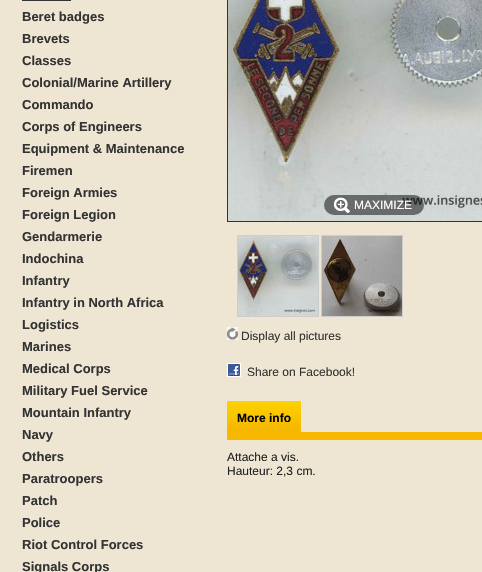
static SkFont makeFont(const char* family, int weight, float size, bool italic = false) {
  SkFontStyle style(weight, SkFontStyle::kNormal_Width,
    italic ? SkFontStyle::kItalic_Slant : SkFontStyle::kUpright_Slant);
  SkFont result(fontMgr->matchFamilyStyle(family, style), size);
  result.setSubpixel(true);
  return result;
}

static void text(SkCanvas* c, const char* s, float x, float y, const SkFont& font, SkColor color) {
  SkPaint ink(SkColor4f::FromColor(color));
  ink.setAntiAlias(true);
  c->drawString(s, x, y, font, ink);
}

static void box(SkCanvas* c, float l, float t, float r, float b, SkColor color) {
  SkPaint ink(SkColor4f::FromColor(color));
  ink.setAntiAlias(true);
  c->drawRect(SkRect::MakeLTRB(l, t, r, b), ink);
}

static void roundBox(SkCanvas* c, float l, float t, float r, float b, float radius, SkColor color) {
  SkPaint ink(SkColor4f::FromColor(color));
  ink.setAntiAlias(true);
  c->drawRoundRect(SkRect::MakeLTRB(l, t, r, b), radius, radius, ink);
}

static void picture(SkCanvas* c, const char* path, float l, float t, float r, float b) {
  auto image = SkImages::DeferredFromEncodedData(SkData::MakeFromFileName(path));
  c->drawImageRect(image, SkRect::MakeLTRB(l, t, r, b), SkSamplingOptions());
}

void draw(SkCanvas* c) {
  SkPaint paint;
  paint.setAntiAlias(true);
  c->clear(0xffeee5d3);
  box(c, 22, 0, 71, 1, 0xff333333);
  SkFont face1 = makeFont("Liberation Sans", 700, 13);
  text(c, "Beret badges", 22, 21, face1, 0xff333333);
  text(c, "Brevets", 22, 43, face1, 0xff333333);
  text(c, "Classes", 22, 65, face1, 0xff333333);
  text(c, "Colonial/Marine Artillery", 22, 87, face1, 0xff333333);
  text(c, "Commando", 22, 109, face1, 0xff333333);
  text(c, "Corps of Engineers", 22, 131, face1, 0xff333333);
  text(c, "Equipment & Maintenance", 22, 153, face1, 0xff333333);
  text(c, "Firemen", 22, 175, face1, 0xff333333);
  text(c, "Foreign Armies", 22, 197, face1, 0xff333333);
  text(c, "Foreign Legion", 22, 219, face1, 0xff333333);
  text(c, "Gendarmerie", 22, 241, face1, 0xff333333);
  text(c, "Indochina", 22, 263, face1, 0xff333333);
  text(c, "Infantry", 22, 285, face1, 0xff333333);
  text(c, "Infantry in North Africa", 22, 307, face1, 0xff333333);
  text(c, "Logistics", 22, 329, face1, 0xff333333);
  text(c, "Marines", 22, 351, face1, 0xff333333);
  text(c, "Medical Corps", 22, 373, face1, 0xff333333);
  text(c, "Military Fuel Service", 22, 395, face1, 0xff333333);
  text(c, "Mountain Infantry", 22, 417, face1, 0xff333333);
  text(c, "Navy", 22, 439, face1, 0xff333333);
  text(c, "Others", 22, 461, face1, 0xff333333);
  text(c, "Paratroopers", 22, 483, face1, 0xff333333);
  text(c, "Patch", 22, 505, face1, 0xff333333);
  text(c, "Police", 22, 527, face1, 0xff333333);
  text(c, "Riot Control Forces", 22, 549, face1, 0xff333333);
  text(c, "Signals Corps", 22, 571, face1, 0xff333333);
  paint.setStyle(SkPaint::kStroke_Style);
  paint.setStrokeWidth(1);
  paint.setColor(0xff333333);
  c->drawRect(SkRect::MakeLTRB(227.5f, -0.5f, 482.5f, 221.5f), paint);
  picture(c, "img_01.png", 228, 0, 482, 221);
  roundBox(c, 324, 195, 424, 215, 10, 0x80000000);
  picture(c, "img_02.png", 334, 197, 350, 213);
  SkFont face2 = makeFont("Liberation Sans", 400, 12);
  text(c, "MAXIMIZE", 354, 209, face2, 0xffffffff);
  paint.setColor(0xffcdcdcd);
  c->drawRect(SkRect::MakeLTRB(237.5f, 235.5f, 318.5f, 316.5f), paint);
  picture(c, "img_03.png", 238, 236, 318, 316);
  c->drawRect(SkRect::MakeLTRB(321.5f, 235.5f, 402.5f, 316.5f), paint);
  picture(c, "img_04.png", 322, 236, 402, 316);
  picture(c, "img_05.png", 227, 327, 238, 340);
  text(c, "Display all pictures", 241, 340, face2, 0xff333333);
  picture(c, "img_06.png", 227, 363, 241, 377);
  text(c, "Share on Facebook!", 247, 376, face2, 0xff333333);
  box(c, 227, 432, 482, 440, 0xfff7b900);
  picture(c, "img_07.png", 227, 401, 301, 432);
  SkFont face3 = makeFont("Liberation Sans", 700, 12);
  text(c, "More info", 237, 422, face3, 0xff000000);
  text(c, "Attache a vis.", 227, 461, face2, 0xff222222);
  text(c, "Hauteur: 2,3 cm.", 227, 475, face2, 0xff222222);
}
